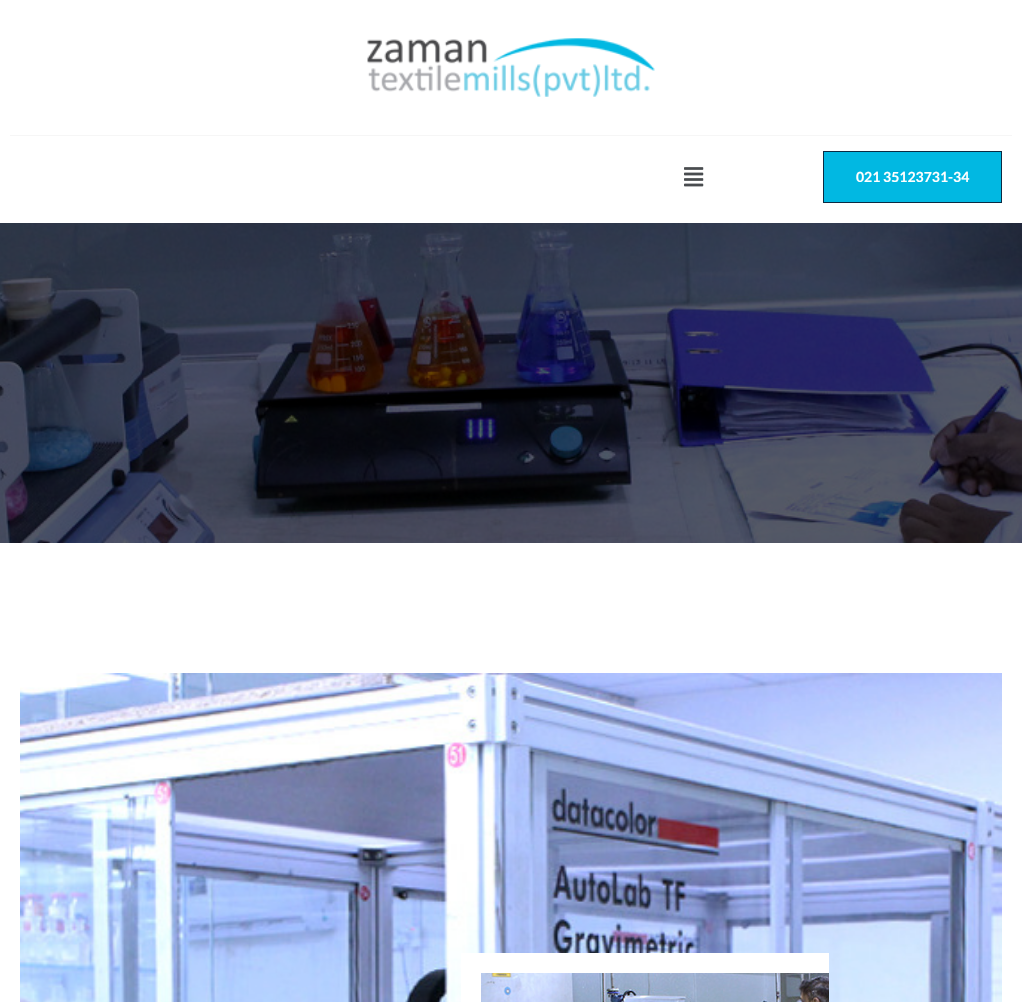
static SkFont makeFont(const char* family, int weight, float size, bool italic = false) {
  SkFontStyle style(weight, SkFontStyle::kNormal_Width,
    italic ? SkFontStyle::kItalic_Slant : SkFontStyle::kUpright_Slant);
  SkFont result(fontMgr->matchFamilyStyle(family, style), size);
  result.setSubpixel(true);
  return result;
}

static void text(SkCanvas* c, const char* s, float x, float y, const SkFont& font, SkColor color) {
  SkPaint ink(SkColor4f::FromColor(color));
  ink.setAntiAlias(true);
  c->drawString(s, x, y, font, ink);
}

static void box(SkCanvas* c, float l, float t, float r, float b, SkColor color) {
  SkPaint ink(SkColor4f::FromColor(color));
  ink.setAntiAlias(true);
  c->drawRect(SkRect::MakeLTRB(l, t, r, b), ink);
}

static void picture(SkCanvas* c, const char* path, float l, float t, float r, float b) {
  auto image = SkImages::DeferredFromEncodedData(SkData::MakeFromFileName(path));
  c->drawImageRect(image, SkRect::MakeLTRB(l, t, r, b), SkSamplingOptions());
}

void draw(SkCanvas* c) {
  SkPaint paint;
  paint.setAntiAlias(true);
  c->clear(0xffffffff);
  box(c, 10, 135, 1012, 136, 0xfff6f6f6);
  picture(c, "img_01.png", 367, 38, 655, 97);
  picture(c, "img_02.png", 684, 167, 704, 187);
  paint.setColor(0xff01b8e2);
  c->drawRect(SkRect::MakeLTRB(823.5f, 151.5f, 1001.5f, 202.5f), paint);
  paint.setStyle(SkPaint::kStroke_Style);
  paint.setStrokeWidth(1);
  paint.setColor(0xff0b2b43);
  c->drawRect(SkRect::MakeLTRB(823.5f, 151.5f, 1001.5f, 202.5f), paint);
  SkFont face1 = makeFont("Lato", 700, 14);
  text(c, "021 35123731-34", 856, 182, face1, 0xffffffff);
  picture(c, "img_03.png", 0, 223, 1022, 543);
  picture(c, "img_04.png", 20, 673, 1002, 1002);
  box(c, 481, 953, 829, 973, 0xffffffff);
  box(c, 461, 953, 481, 1002, 0xffffffff);
  picture(c, "img_05.png", 481, 973, 829, 1002);
}
